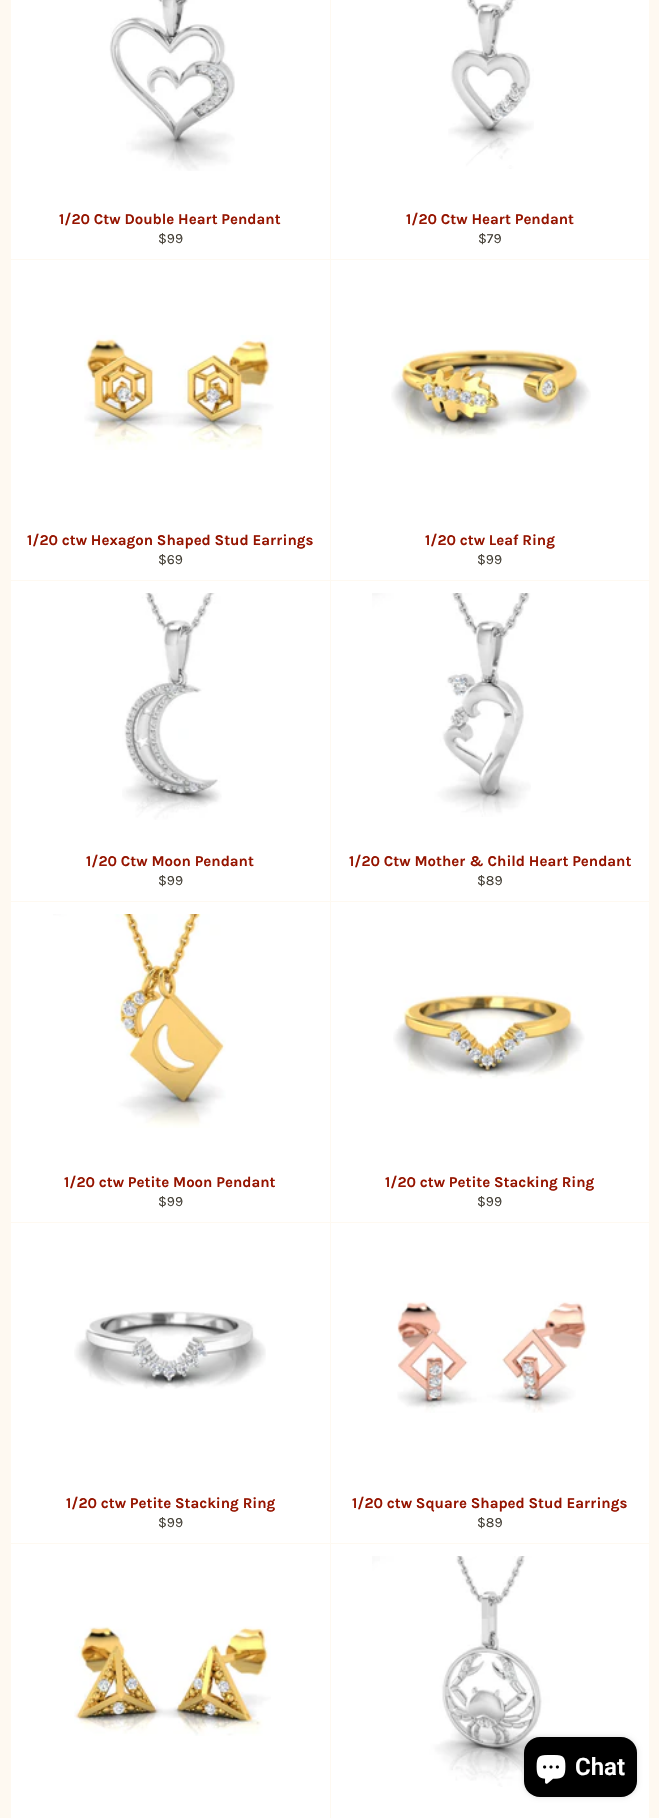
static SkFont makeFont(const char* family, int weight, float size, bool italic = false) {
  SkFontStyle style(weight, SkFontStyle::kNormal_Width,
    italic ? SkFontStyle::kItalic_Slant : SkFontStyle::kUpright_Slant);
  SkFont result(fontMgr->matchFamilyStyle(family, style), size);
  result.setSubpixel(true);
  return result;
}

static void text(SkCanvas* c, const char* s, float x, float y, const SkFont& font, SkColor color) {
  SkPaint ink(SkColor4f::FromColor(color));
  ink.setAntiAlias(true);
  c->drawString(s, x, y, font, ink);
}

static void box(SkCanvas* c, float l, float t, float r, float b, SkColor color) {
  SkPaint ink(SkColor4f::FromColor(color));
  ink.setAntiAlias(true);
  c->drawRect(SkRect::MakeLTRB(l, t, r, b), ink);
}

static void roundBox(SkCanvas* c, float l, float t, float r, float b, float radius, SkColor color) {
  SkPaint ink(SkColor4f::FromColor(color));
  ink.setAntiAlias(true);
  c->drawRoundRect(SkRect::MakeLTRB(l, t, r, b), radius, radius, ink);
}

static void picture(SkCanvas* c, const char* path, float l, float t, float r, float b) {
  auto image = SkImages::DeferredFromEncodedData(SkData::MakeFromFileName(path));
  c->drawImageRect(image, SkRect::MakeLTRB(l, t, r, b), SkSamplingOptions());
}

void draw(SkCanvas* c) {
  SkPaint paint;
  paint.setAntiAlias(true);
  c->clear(0xfffef9f1);
  box(c, 11, 0, 330, 259, 0xffffffff);
  picture(c, "img_01.png", 109, 0, 235, 171);
  SkFont face1 = makeFont("Karla", 700, 15);
  text(c, "1/20 Ctw Double Heart Pendant", 59, 224, face1, 0xff951400);
  SkFont face2 = makeFont("Karla", 400, 14);
  text(c, "$99", 158, 243, face2, 0xff443f36);
  box(c, 331, 0, 649, 259, 0xffffffff);
  picture(c, "img_02.png", 448, 0, 534, 169);
  text(c, "1/20 Ctw Heart Pendant", 406, 224, face1, 0xff951400);
  text(c, "$79", 478, 243, face2, 0xff443f36);
  box(c, 11, 260, 330, 580, 0xffffffff);
  picture(c, "img_03.png", 84, 335, 274, 450);
  text(c, "1/20 ctw Hexagon Shaped Stud Earrings", 27, 545, face1, 0xff951400);
  text(c, "$69", 158, 564, face2, 0xff443f36);
  box(c, 331, 260, 649, 580, 0xffffffff);
  picture(c, "img_04.png", 391, 349, 591, 439);
  text(c, "1/20 ctw Leaf Ring", 425, 545, face1, 0xff951400);
  text(c, "$99", 477, 564, face2, 0xff443f36);
  box(c, 11, 581, 330, 901, 0xffffffff);
  picture(c, "img_05.png", 122, 593, 222, 820);
  text(c, "1/20 Ctw Moon Pendant", 86, 866, face1, 0xff951400);
  text(c, "$99", 158, 885, face2, 0xff443f36);
  box(c, 331, 581, 649, 901, 0xffffffff);
  picture(c, "img_06.png", 372, 593, 531, 817);
  text(c, "1/20 Ctw Mother & Child Heart Pendant", 349, 866, face1, 0xff951400);
  text(c, "$89", 477, 885, face2, 0xff443f36);
  box(c, 11, 902, 330, 1222, 0xffffffff);
  picture(c, "img_07.png", 53, 914, 226, 1128);
  text(c, "1/20 ctw Petite Moon Pendant", 64, 1187, face1, 0xff951400);
  text(c, "$99", 158, 1206, face2, 0xff443f36);
  box(c, 331, 902, 649, 1222, 0xffffffff);
  picture(c, "img_08.png", 393, 992, 585, 1079);
  text(c, "1/20 ctw Petite Stacking Ring", 385, 1187, face1, 0xff951400);
  text(c, "$99", 477, 1206, face2, 0xff443f36);
  box(c, 11, 1223, 330, 1543, 0xffffffff);
  picture(c, "img_09.png", 74, 1311, 266, 1389);
  text(c, "1/20 ctw Petite Stacking Ring", 66, 1508, face1, 0xff951400);
  text(c, "$99", 158, 1527, face2, 0xff443f36);
  box(c, 331, 1223, 649, 1543, 0xffffffff);
  picture(c, "img_10.png", 397, 1301, 587, 1413);
  text(c, "1/20 ctw Square Shaped Stud Earrings", 352, 1508, face1, 0xff951400);
  text(c, "$89", 477, 1527, face2, 0xff443f36);
  box(c, 11, 1544, 330, 1818, 0xffffffff);
  picture(c, "img_11.png", 74, 1626, 271, 1736);
  box(c, 331, 1544, 649, 1818, 0xffffffff);
  picture(c, "img_12.png", 372, 1556, 550, 1787);
  paint.setColor(0x26000000);
  paint.setMaskFilter(SkMaskFilter::MakeBlur(kNormal_SkBlurStyle, 2.5f));
  c->drawRoundRect(SkRect::MakeLTRB(524, 1737, 637, 1797), 16, 16, paint);
  paint.setMaskFilter(nullptr);
  roundBox(c, 524, 1737, 637, 1797, 16, 0xff000000);
  picture(c, "img_13.png", 536, 1755, 566, 1784);
  SkFont face3 = makeFont("Roboto", 600, 24);
  text(c, "Chat", 575, 1775, face3, 0xffffffff);
}
